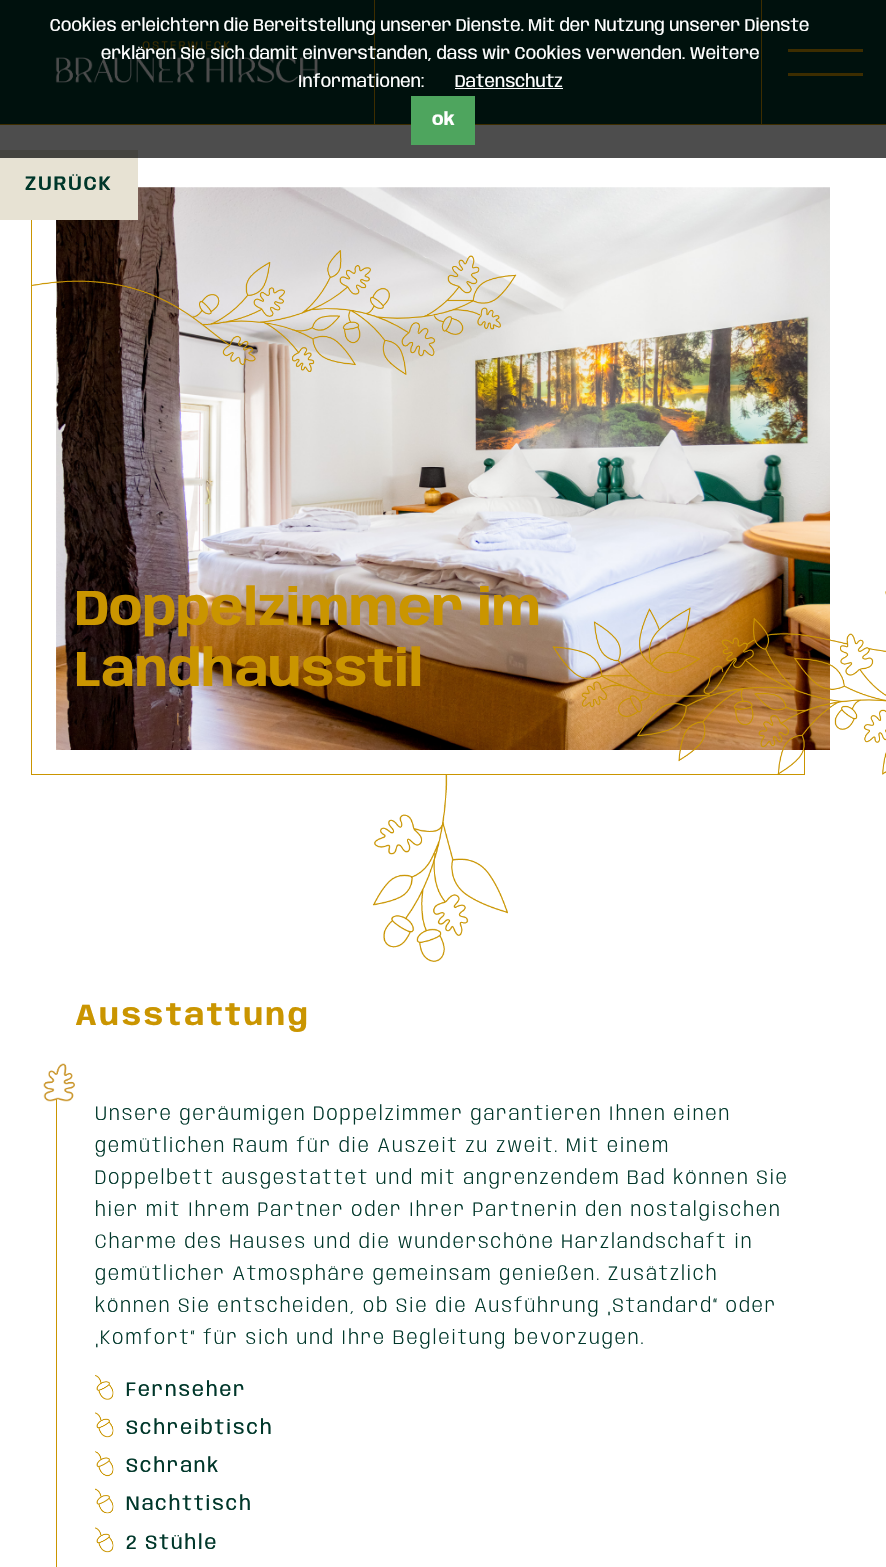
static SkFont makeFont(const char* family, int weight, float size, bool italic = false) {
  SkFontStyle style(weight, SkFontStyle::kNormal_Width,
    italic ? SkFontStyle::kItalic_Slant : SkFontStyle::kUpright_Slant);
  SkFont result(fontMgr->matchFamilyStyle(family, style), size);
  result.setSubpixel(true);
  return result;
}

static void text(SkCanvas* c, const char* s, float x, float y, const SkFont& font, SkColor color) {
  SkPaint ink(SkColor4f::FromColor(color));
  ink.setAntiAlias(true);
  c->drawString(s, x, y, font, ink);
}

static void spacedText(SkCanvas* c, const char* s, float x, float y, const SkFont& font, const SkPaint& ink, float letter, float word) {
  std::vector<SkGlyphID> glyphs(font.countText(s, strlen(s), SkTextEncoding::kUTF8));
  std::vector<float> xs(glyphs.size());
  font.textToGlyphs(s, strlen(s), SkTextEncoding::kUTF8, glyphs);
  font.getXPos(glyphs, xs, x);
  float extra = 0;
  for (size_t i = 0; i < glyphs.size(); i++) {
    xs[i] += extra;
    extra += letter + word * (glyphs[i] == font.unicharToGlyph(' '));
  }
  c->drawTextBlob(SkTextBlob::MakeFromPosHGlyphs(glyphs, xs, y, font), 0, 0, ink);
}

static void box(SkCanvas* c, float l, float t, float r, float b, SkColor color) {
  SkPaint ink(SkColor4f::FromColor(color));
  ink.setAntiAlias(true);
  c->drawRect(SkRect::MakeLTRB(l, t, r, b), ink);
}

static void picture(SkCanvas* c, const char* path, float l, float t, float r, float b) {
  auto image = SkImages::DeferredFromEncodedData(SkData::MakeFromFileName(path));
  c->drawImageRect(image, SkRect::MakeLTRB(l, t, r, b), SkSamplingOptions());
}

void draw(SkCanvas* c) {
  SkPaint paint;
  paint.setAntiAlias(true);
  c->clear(0xffffffff);
  box(c, 0, 125, 886, 158, 0xff4d4d4d);
  box(c, 0, 0, 886, 124, 0xff00110d);
  box(c, 374, 0, 375, 124, 0xff3d2d00);
  box(c, 761, 0, 762, 124, 0xff3d2d00);
  SkFont face1 = makeFont("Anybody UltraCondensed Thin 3", 100, 17.5f);
  text(c, "Cookies erleichtern die Bereitstellung unserer Dienste. Mit der Nutzung unserer Dienste", 50, 31, face1, 0xffffffff);
  picture(c, "img_01.png", 55, 41, 318, 83);
  text(c, "erklären Sie sich damit einverstanden, dass wir Cookies verwenden. Weitere", 101, 59, face1, 0xffffffff);
  text(c, "Informationen:", 298, 87, face1, 0xffffffff);
  text(c, "Datenschutz", 455, 87, face1, 0xffffffff);
  box(c, 455, 88, 563, 89, 0xffffffff);
  box(c, 0, 124, 886, 125, 0xff3d2d00);
  box(c, 411, 96, 475, 145, 0xff4ea55e);
  SkFont face2 = makeFont("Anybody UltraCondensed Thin", 100, 17.5f);
  text(c, "ok", 432, 125, face2, 0xffffffff);
  box(c, 788, 49, 863, 52, 0xff3d2d00);
  box(c, 788, 73, 863, 76, 0xff3d2d00);
  picture(c, "img_02.png", 56, 187, 830, 750);
  paint.setStyle(SkPaint::kStroke_Style);
  paint.setStrokeWidth(1);
  paint.setColor(0xffca9500);
  c->drawRect(SkRect::MakeLTRB(31.5f, 213.5f, 804.5f, 774.5f), paint);
  picture(c, "img_03.png", 56, 187, 830, 750);
  box(c, 0, 158, 138, 220, 0xffe7e2d3);
  box(c, 0, 150, 138, 158, 0xff45443f);
  SkFont face3 = makeFont("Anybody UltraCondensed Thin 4", 100, 20);
  paint.setStyle(SkPaint::kFill_Style);
  paint.setColor(0xff00372a);
  spacedText(c, "ZURÜCK", 25, 190, face3, paint, 1.88f, 0);
  picture(c, "img_04.png", 372, 775, 508, 962);
  picture(c, "img_05.png", 32, 250, 517, 375);
  picture(c, "img_06.png", 552, 591, 886, 775);
  SkFont face4 = makeFont("Anybody UltraCondensed Thin", 100, 50.5f);
  text(c, "Doppelzimmer im", 75, 625, face4, 0xffca9500);
  text(c, "Landhausstil", 75, 686, face4, 0xffca9500);
  SkFont face5 = makeFont("Anybody UltraCondensed Thin", 100, 30);
  paint.setColor(0xffca9500);
  spacedText(c, "Ausstattung", 75, 1025, face5, paint, 2.5f, 0);
  box(c, 56, 1099, 57, 1567, 0xffca9500);
  picture(c, "img_07.png", 43, 1063, 75, 1102);
  SkFont face6 = makeFont("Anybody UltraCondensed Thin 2", 100, 20);
  paint.setColor(0xff00372a);
  spacedText(c, "Unsere geräumigen Doppelzimmer garantieren Ihnen einen", 95, 1120, face6, paint, 1.88f, 0);
  spacedText(c, "gemütlichen Raum für die Auszeit zu zweit. Mit einem", 95, 1152, face6, paint, 1.88f, 0);
  spacedText(c, "Doppelbett ausgestattet und mit angrenzendem Bad können Sie", 95, 1184, face6, paint, 1.88f, 0);
  spacedText(c, "hier mit Ihrem Partner oder Ihrer Partnerin den nostalgischen", 95, 1216, face6, paint, 1.88f, 0);
  spacedText(c, "Charme des Hauses und die wunderschöne Harzlandschaft in", 95, 1248, face6, paint, 1.88f, 0);
  spacedText(c, "gemütlicher Atmosphäre gemeinsam genießen. Zusätzlich", 95, 1280, face6, paint, 1.88f, 0);
  spacedText(c, "können Sie entscheiden, ob Sie die Ausführung „Standard“ oder", 95, 1312, face6, paint, 1.88f, 0);
  spacedText(c, "„Komfort“ für sich und Ihre Begleitung bevorzugen.", 95, 1344, face6, paint, 1.88f, 0);
  picture(c, "img_08.png", 95, 1375, 114, 1400);
  SkFont face7 = makeFont("Anybody UltraCondensed Thin 3", 100, 20);
  spacedText(c, "Fernseher", 126, 1396, face7, paint, 1.88f, 0);
  picture(c, "img_09.png", 95, 1412, 114, 1438);
  spacedText(c, "Schreibtisch", 126, 1434, face7, paint, 1.88f, 0);
  picture(c, "img_10.png", 95, 1451, 114, 1477);
  spacedText(c, "Schrank", 126, 1472, face7, paint, 1.88f, 0);
  picture(c, "img_11.png", 95, 1488, 114, 1514);
  spacedText(c, "Nachttisch", 126, 1510, face7, paint, 1.88f, 0);
  picture(c, "img_09.png", 95, 1527, 114, 1553);
  spacedText(c, "2 Stühle", 126, 1549, face7, paint, 1.88f, 0);
}
